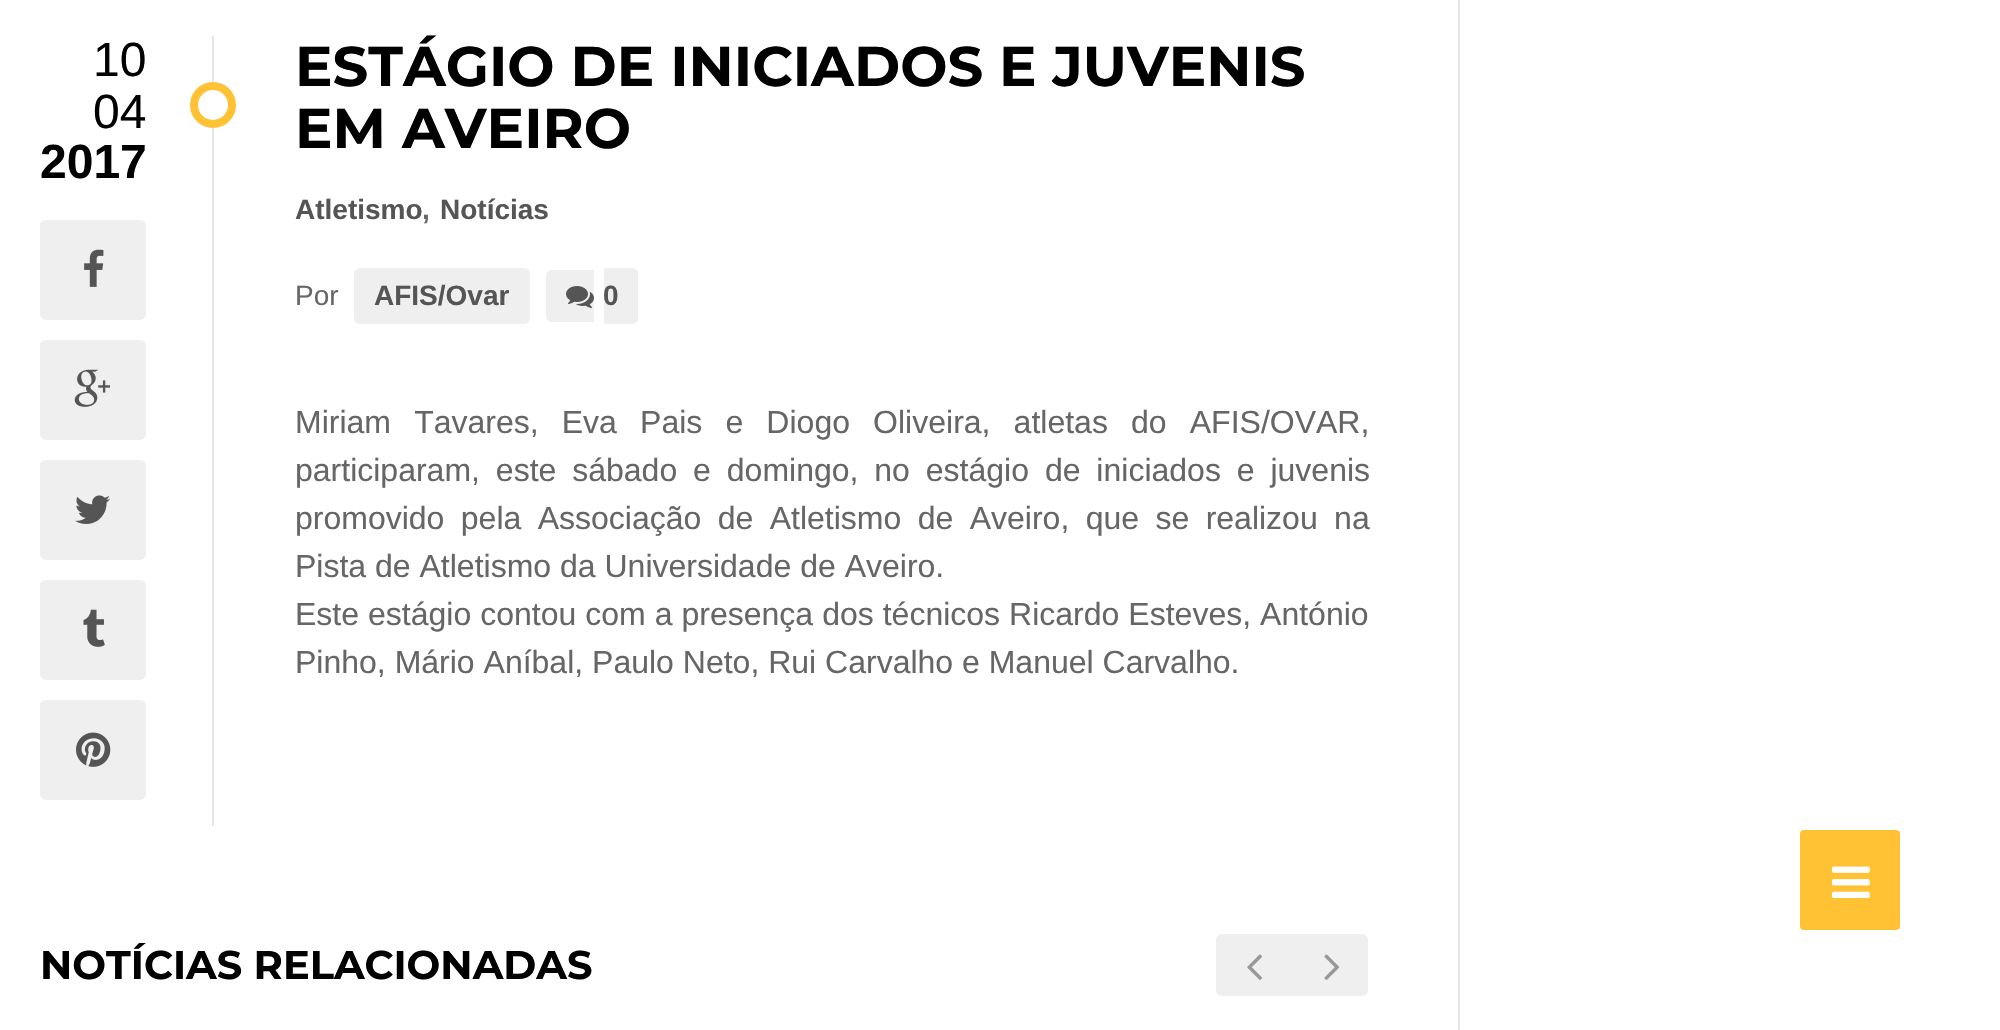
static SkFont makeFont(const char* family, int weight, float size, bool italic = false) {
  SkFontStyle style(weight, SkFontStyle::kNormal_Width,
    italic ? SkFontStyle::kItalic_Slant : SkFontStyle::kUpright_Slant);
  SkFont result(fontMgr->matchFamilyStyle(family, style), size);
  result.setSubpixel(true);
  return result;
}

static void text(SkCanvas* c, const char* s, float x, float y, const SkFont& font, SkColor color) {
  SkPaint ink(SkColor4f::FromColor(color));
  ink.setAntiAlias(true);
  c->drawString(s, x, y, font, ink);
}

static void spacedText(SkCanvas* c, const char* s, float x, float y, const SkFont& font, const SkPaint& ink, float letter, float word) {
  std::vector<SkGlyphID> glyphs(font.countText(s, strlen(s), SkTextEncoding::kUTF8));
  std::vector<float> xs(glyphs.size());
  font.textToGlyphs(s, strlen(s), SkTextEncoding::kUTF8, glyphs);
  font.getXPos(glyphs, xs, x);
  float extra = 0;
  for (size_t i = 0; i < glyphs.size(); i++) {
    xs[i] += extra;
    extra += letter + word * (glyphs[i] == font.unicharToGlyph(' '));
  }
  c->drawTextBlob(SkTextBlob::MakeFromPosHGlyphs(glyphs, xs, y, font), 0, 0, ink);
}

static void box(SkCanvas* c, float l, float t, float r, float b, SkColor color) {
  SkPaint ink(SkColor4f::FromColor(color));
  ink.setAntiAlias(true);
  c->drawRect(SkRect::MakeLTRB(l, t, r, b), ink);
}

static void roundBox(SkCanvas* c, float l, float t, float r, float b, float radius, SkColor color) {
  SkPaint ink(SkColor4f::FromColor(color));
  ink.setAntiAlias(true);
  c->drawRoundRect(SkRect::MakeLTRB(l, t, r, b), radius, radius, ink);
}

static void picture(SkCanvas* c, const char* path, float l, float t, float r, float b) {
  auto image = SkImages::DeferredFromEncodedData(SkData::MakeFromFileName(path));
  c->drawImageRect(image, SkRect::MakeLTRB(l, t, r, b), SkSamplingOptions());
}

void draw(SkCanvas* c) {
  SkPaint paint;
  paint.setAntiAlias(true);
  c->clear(0xffffffff);
  box(c, 1458, 0, 1460, 1030, 0xffe5e5e5);
  SkFont face1 = makeFont("Liberation Sans", 400, 48);
  text(c, "10", 93, 76, face1, 0xff000000);
  text(c, "04", 93, 128, face1, 0xff000000);
  SkFont face2 = makeFont("Liberation Sans", 700, 48);
  text(c, "2017", 40, 178, face2, 0xff000000);
  box(c, 212, 36, 214, 826, 0xffe5e5e5);
  paint.setColor(0xffffffff);
  c->drawCircle(213, 105, 19, paint);
  paint.setStyle(SkPaint::kStroke_Style);
  paint.setStrokeWidth(8);
  paint.setColor(0xffffc234);
  c->drawCircle(213, 105, 19, paint);
  roundBox(c, 40, 220, 146, 320, 6, 0xffefefef);
  picture(c, "img_01.png", 84, 249, 104, 287);
  roundBox(c, 40, 340, 146, 440, 6, 0xffefefef);
  picture(c, "img_02.png", 74, 369, 111, 407);
  roundBox(c, 40, 460, 146, 560, 6, 0xffefefef);
  picture(c, "img_03.png", 75, 495, 110, 524);
  roundBox(c, 40, 580, 146, 680, 6, 0xffefefef);
  picture(c, "img_04.png", 83, 609, 105, 647);
  roundBox(c, 40, 700, 146, 800, 6, 0xffefefef);
  picture(c, "img_05.png", 76, 732, 111, 767);
  SkFont face3 = makeFont("Montserrat", 700, 56);
  text(c, "ESTÁGIO DE INICIADOS E JUVENIS", 295, 86, face3, 0xff000000);
  text(c, "EM AVEIRO", 295, 148, face3, 0xff000000);
  SkFont face4 = makeFont("Liberation Sans", 700, 28);
  text(c, "Atletismo", 295, 219, face4, 0xff555555);
  text(c, ",", 422, 219, face4, 0xff666666);
  text(c, "Notícias", 440, 219, face4, 0xff555555);
  SkFont face5 = makeFont("Liberation Sans", 400, 28);
  text(c, "Por", 295, 305, face5, 0xff666666);
  roundBox(c, 354, 268, 530, 324, 6, 0xffefefef);
  text(c, "AFIS/Ovar", 374, 305, face4, 0xff555555);
  paint.setStyle(SkPaint::kFill_Style);
  paint.setColor(0xffefefef);
  c->drawPath(SkPathBuilder().moveTo(552, 270).lineTo(594, 270).lineTo(594, 322).lineTo(552, 322).cubicTo(548.5f, 322, 546, 319.5f, 546, 316).lineTo(546, 276).cubicTo(546, 272.5f, 548.5f, 270, 552, 270).close().detach(), paint);
  c->drawPath(SkPathBuilder().moveTo(604, 268).lineTo(632, 268).cubicTo(635.5f, 268, 638, 270.5f, 638, 274).lineTo(638, 318).cubicTo(638, 321.5f, 635.5f, 324, 632, 324).lineTo(604, 324).close().detach(), paint);
  picture(c, "img_06.png", 566, 286, 594, 308);
  text(c, "0", 603, 305, face4, 0xff555555);
  SkFont face6 = makeFont("Liberation Sans", 400, 32);
  paint.setColor(0xff666666);
  spacedText(c, "Miriam Tavares, Eva Pais e Diogo Oliveira, atletas do AFIS/OVAR,", 295, 433, face6, paint, 0, 14.25f);
  spacedText(c, "participaram, este sábado e domingo, no estágio de iniciados e juvenis", 295, 481, face6, paint, 0, 7);
  spacedText(c, "promovido pela Associação de Atletismo de Aveiro, que se realizou na", 295, 529, face6, paint, 0, 7.5f);
  text(c, "Pista de Atletismo da Universidade de Aveiro.", 295, 577, face6, 0xff666666);
  spacedText(c, "Este estágio contou com a presença dos técnicos Ricardo Esteves, António", 295, 625, face6, paint, 0, 0.1f);
  text(c, "Pinho, Mário Aníbal, Paulo Neto, Rui Carvalho e Manuel Carvalho.", 295, 673, face6, 0xff666666);
  SkFont face7 = makeFont("Montserrat", 700, 40);
  text(c, "NOTÍCIAS RELACIONADAS", 40, 979, face7, 0xff000000);
  roundBox(c, 1216, 934, 1368, 996, 6, 0xffefefef);
  picture(c, "img_07.png", 1247, 954, 1262, 980);
  picture(c, "img_08.png", 1324, 954, 1340, 980);
  roundBox(c, 1800, 830, 1900, 930, 4, 0xffffc234);
  picture(c, "img_09.png", 1832, 866, 1870, 898);
}
